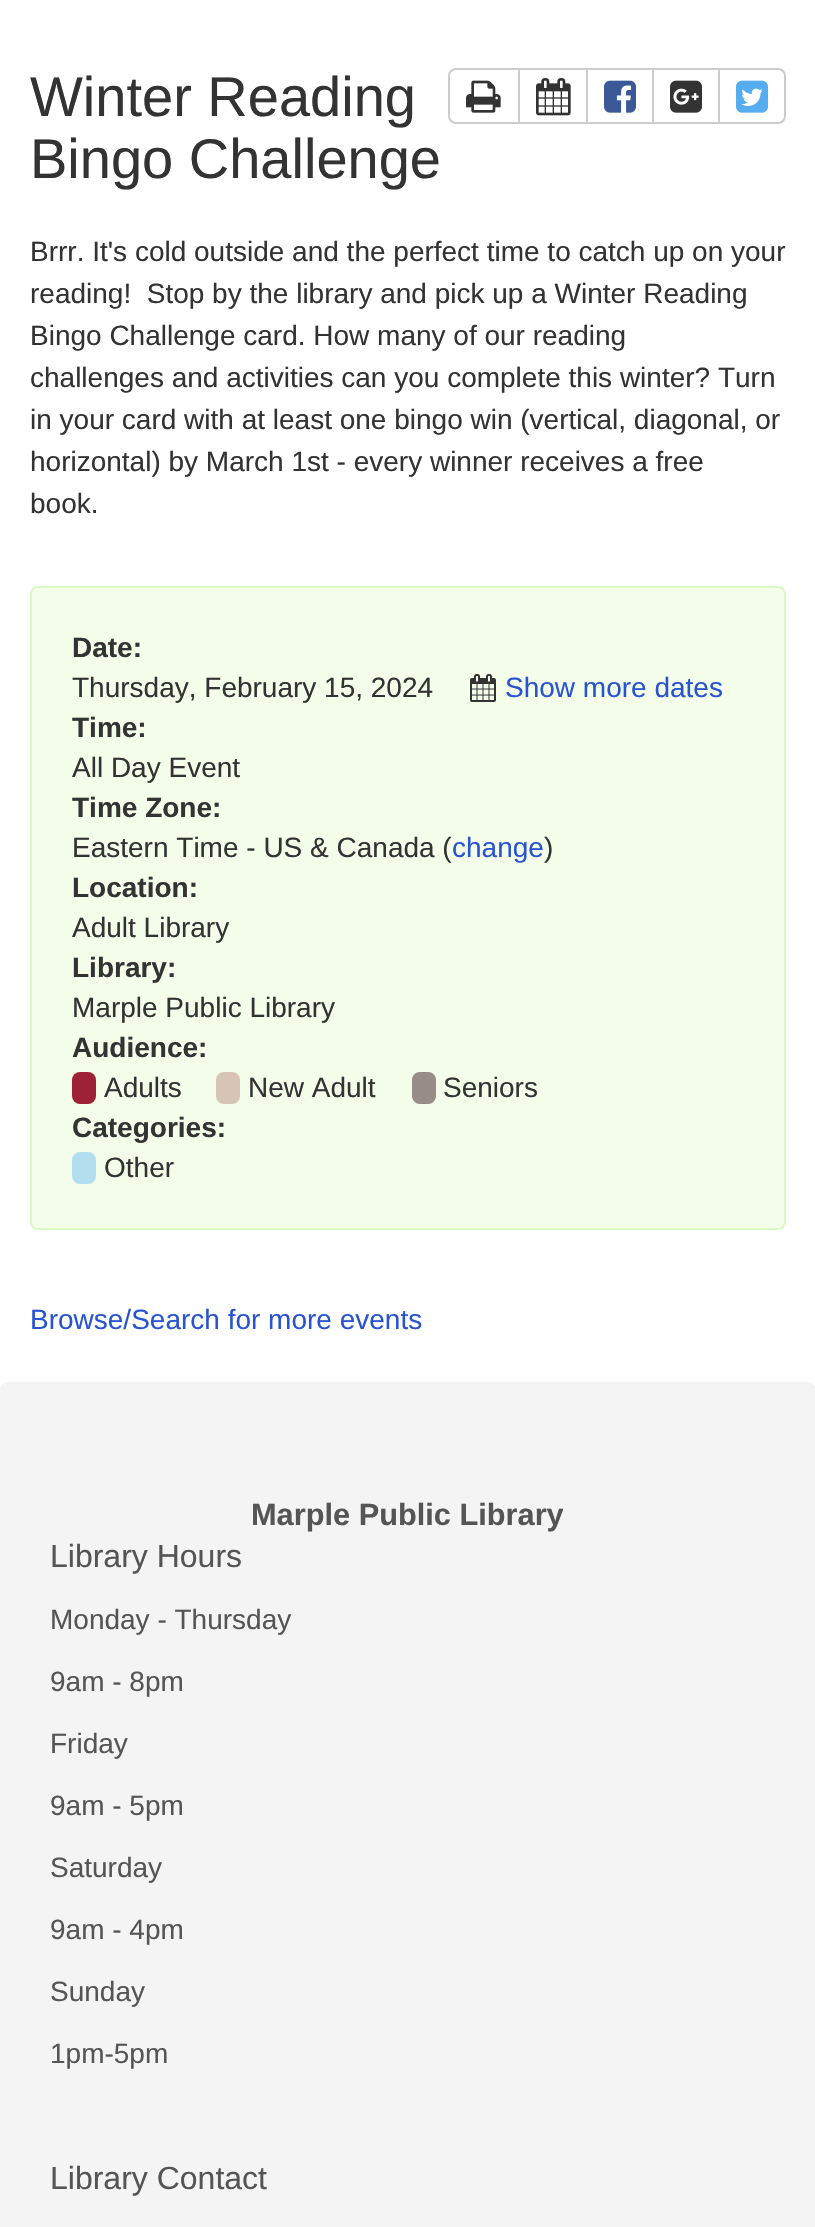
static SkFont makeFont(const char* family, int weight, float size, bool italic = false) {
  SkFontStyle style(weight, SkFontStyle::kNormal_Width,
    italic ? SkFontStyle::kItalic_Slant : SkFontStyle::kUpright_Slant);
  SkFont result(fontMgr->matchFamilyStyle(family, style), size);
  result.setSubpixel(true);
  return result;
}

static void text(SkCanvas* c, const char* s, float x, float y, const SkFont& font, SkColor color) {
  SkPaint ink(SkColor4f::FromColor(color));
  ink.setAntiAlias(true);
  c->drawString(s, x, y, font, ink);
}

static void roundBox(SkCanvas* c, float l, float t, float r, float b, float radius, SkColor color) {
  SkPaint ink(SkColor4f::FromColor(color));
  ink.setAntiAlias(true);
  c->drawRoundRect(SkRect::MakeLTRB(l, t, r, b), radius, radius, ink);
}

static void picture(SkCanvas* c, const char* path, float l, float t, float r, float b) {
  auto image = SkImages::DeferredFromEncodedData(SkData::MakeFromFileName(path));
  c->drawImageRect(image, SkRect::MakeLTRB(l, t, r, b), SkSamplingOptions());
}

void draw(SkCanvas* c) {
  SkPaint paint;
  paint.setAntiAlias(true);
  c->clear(0xffffffff);
  SkFont face1 = makeFont("Liberation Sans", 400, 56);
  text(c, "Winter Reading", 30, 116, face1, 0xff333333);
  text(c, "Bingo Challenge", 30, 178, face1, 0xff333333);
  paint.setStyle(SkPaint::kStroke_Style);
  paint.setStrokeWidth(2);
  paint.setColor(0xffcccccc);
  c->drawPath(SkPathBuilder().moveTo(456, 69).lineTo(519, 69).lineTo(519, 123).lineTo(456, 123).cubicTo(452, 123, 449, 120, 449, 116).lineTo(449, 76).cubicTo(449, 72, 452, 69, 456, 69).close().detach(), paint);
  picture(c, "img_01.png", 466, 80, 501, 113);
  c->drawRect(SkRect::MakeLTRB(519, 69, 587, 123), paint);
  picture(c, "img_02.png", 536, 78, 571, 116);
  c->drawRect(SkRect::MakeLTRB(587, 69, 653, 123), paint);
  picture(c, "img_03.png", 604, 80, 636, 113);
  c->drawRect(SkRect::MakeLTRB(653, 69, 719, 123), paint);
  picture(c, "img_04.png", 670, 80, 702, 113);
  paint.setStyle(SkPaint::kFill_Style);
  paint.setColor(0xffffffff);
  c->drawPath(SkPathBuilder().moveTo(719, 69).lineTo(778, 69).cubicTo(782, 69, 785, 72, 785, 76).lineTo(785, 116).cubicTo(785, 120, 782, 123, 778, 123).lineTo(719, 123).close().detach(), paint);
  paint.setStyle(SkPaint::kStroke_Style);
  paint.setColor(0xffcccccc);
  c->drawPath(SkPathBuilder().moveTo(719, 69).lineTo(778, 69).cubicTo(782, 69, 785, 72, 785, 76).lineTo(785, 116).cubicTo(785, 120, 782, 123, 778, 123).lineTo(719, 123).close().detach(), paint);
  picture(c, "img_05.png", 736, 80, 768, 113);
  SkFont face2 = makeFont("Liberation Sans", 400, 28);
  text(c, "Brrr. It's cold outside and the perfect time to catch up on your", 30, 261, face2, 0xff333333);
  text(c, "reading!  Stop by the library and pick up a Winter Reading", 30, 303, face2, 0xff333333);
  text(c, "Bingo Challenge card. How many of our reading", 30, 345, face2, 0xff333333);
  text(c, "challenges and activities can you complete this winter? Turn", 30, 387, face2, 0xff333333);
  text(c, "in your card with at least one bingo win (vertical, diagonal, or", 30, 429, face2, 0xff333333);
  text(c, "horizontal) by March 1st - every winner receives a free", 30, 471, face2, 0xff333333);
  text(c, "book.", 30, 513, face2, 0xff333333);
  paint.setStyle(SkPaint::kFill_Style);
  paint.setColor(0xfff3fdea);
  c->drawRoundRect(SkRect::MakeLTRB(31, 587, 785, 1229), 7, 7, paint);
  paint.setStyle(SkPaint::kStroke_Style);
  paint.setColor(0xffdaf9c2);
  c->drawRoundRect(SkRect::MakeLTRB(31, 587, 785, 1229), 7, 7, paint);
  SkFont face3 = makeFont("Liberation Sans", 700, 28);
  text(c, "Date:", 72, 657, face3, 0xff333333);
  text(c, "Thursday, February 15, 2024", 72, 697, face2, 0xff333333);
  picture(c, "img_06.png", 470, 674, 496, 702);
  text(c, "Show more dates", 505, 697, face2, 0xff2954d1);
  text(c, "Time:", 72, 737, face3, 0xff333333);
  text(c, "All Day Event", 72, 777, face2, 0xff333333);
  text(c, "Time Zone:", 72, 817, face3, 0xff333333);
  text(c, "Eastern Time - US & Canada (", 72, 857, face2, 0xff333333);
  text(c, "change", 452, 857, face2, 0xff2954d1);
  text(c, ")", 544, 857, face2, 0xff333333);
  text(c, "Location:", 72, 897, face3, 0xff333333);
  text(c, "Adult Library", 72, 937, face2, 0xff333333);
  text(c, "Library:", 72, 977, face3, 0xff333333);
  text(c, "Marple Public Library", 72, 1017, face2, 0xff333333);
  text(c, "Audience:", 72, 1057, face3, 0xff333333);
  roundBox(c, 72, 1072, 96, 1104, 8, 0xff9d2235);
  text(c, "Adults", 104, 1097, face2, 0xff333333);
  roundBox(c, 216, 1072, 240, 1104, 8, 0xffd7c4b7);
  text(c, "New Adult", 248, 1097, face2, 0xff333333);
  roundBox(c, 412, 1072, 436, 1104, 8, 0xff978c87);
  text(c, "Seniors", 443, 1097, face2, 0xff333333);
  text(c, "Categories:", 72, 1137, face3, 0xff333333);
  roundBox(c, 72, 1152, 96, 1184, 8, 0xffb2def0);
  text(c, "Other", 104, 1177, face2, 0xff333333);
  text(c, "Browse/Search for more events", 30, 1329, face2, 0xff2954d1);
  roundBox(c, 0, 1382, 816, 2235, 8, 0xfff4f4f4);
  SkFont face4 = makeFont("Liberation Sans", 700, 30.75f);
  text(c, "Marple Public Library", 251, 1525, face4, 0xff555555);
  SkFont face5 = makeFont("Liberation Sans", 400, 32);
  text(c, "Library Hours", 50, 1567, face5, 0xff555555);
  text(c, "Monday - Thursday", 50, 1629, face2, 0xff555555);
  text(c, "9am - 8pm", 50, 1691, face2, 0xff555555);
  text(c, "Friday", 50, 1753, face2, 0xff555555);
  text(c, "9am - 5pm", 50, 1815, face2, 0xff555555);
  text(c, "Saturday", 50, 1877, face2, 0xff555555);
  text(c, "9am - 4pm", 50, 1939, face2, 0xff555555);
  text(c, "Sunday", 50, 2001, face2, 0xff555555);
  text(c, "1pm-5pm", 50, 2063, face2, 0xff555555);
  text(c, "Library Contact", 50, 2189, face5, 0xff555555);
}
